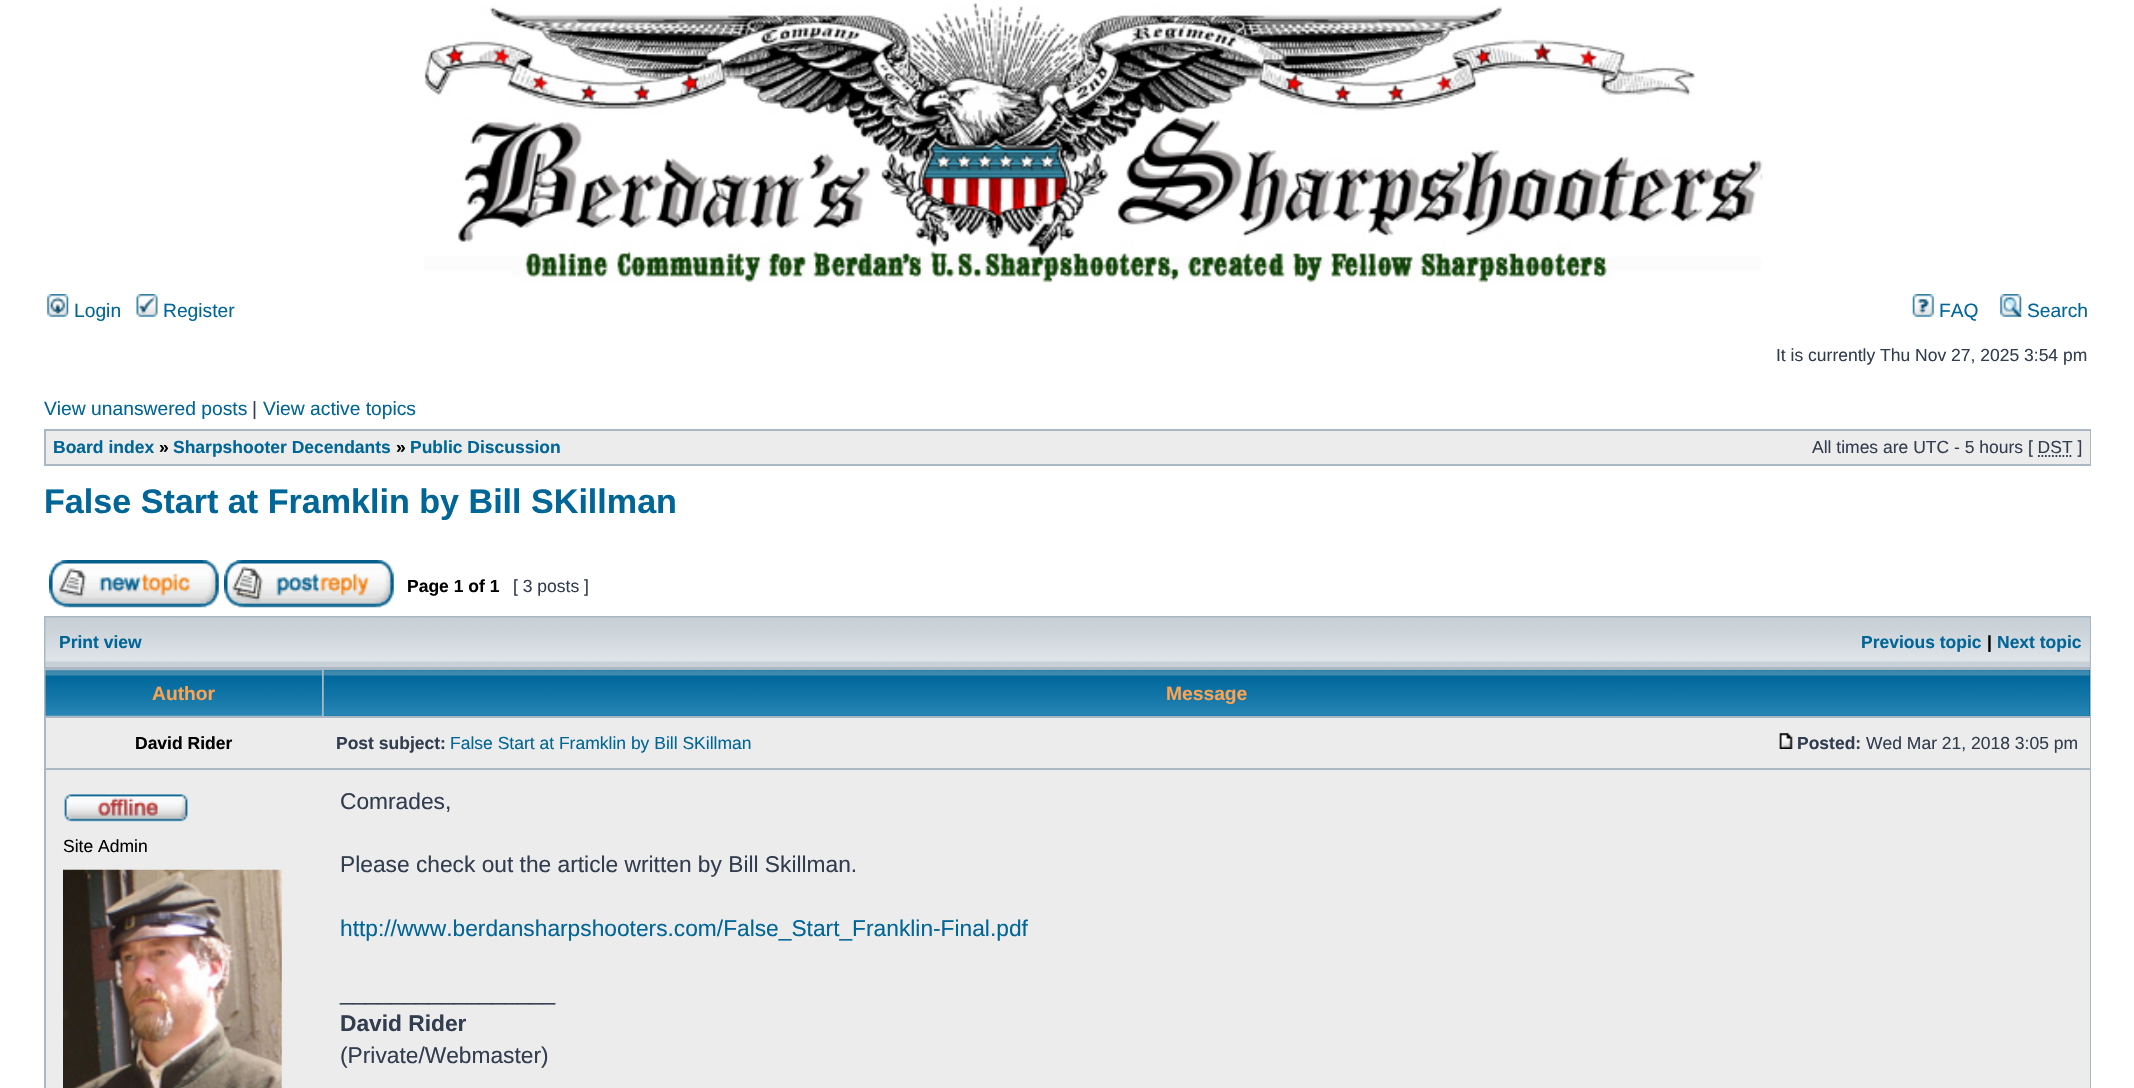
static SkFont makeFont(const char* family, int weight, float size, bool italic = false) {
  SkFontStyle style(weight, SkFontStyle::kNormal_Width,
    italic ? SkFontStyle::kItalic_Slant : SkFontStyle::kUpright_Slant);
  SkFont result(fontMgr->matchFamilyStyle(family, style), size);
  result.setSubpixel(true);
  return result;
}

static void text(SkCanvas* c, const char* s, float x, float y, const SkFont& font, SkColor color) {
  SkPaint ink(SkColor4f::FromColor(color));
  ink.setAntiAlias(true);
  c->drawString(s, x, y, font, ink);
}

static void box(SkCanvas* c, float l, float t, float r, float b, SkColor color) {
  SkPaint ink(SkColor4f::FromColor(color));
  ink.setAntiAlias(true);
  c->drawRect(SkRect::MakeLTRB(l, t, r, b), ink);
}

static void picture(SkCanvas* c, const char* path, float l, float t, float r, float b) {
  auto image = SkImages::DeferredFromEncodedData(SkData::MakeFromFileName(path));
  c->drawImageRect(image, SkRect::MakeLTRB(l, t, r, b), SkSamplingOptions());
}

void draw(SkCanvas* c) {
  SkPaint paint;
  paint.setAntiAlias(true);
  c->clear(0xffffffff);
  picture(c, "img_01.png", 424, 3, 1763, 283);
  picture(c, "img_02.png", 47, 294, 69, 317);
  SkFont face1 = makeFont("Liberation Sans", 400, 19.25f);
  text(c, "Login", 74, 317, face1, 0xff006597);
  picture(c, "img_03.png", 136, 294, 158, 317);
  text(c, "Register", 163, 317, face1, 0xff006597);
  picture(c, "img_04.png", 1912, 294, 1934, 317);
  text(c, "FAQ", 1939, 317, face1, 0xff006597);
  picture(c, "img_05.png", 2000, 294, 2022, 317);
  text(c, "Search", 2027, 317, face1, 0xff006597);
  SkFont face2 = makeFont("Liberation Sans", 400, 17.5f);
  text(c, "It is currently Thu Nov 27, 2025 3:54 pm", 1776, 361, face2, 0xff323d4f);
  text(c, "View unanswered posts", 44, 415, face1, 0xff006597);
  text(c, "|", 252, 415, face1, 0xff323d4f);
  text(c, "View active topics", 263, 415, face1, 0xff006597);
  box(c, 44, 429, 2091, 466, 0xffa9b8c2);
  box(c, 46, 431, 2090, 464, 0xffececec);
  SkFont face3 = makeFont("Liberation Sans", 700, 17.5f);
  text(c, "Board index", 53, 453, face3, 0xff006597);
  text(c, "»", 159, 453, face3, 0xff000000);
  text(c, "Sharpshooter Decendants", 173, 453, face3, 0xff006597);
  text(c, "»", 396, 453, face3, 0xff000000);
  text(c, "Public Discussion", 410, 453, face3, 0xff006597);
  text(c, "All times are UTC - 5 hours [ DST ]", 1812, 453, face2, 0xff323d4f);
  paint.setStyle(SkPaint::kStroke_Style);
  paint.setStrokeWidth(1.8f);
  paint.setColor(0xff323d4f);
  paint.setPathEffect(SkDashPathEffect::Make({{1.75f, 1.75f}}, 0));
  c->drawPath(SkPathBuilder().moveTo(2038, 456).lineTo(2073, 456).detach(), paint);
  paint.setPathEffect(nullptr);
  SkFont face4 = makeFont("Liberation Sans", 700, 34.1f);
  text(c, "False Start at Framklin by Bill SKillman", 44, 513, face4, 0xff006597);
  picture(c, "img_06.png", 49, 560, 219, 608);
  picture(c, "img_07.png", 224, 560, 394, 608);
  text(c, "Page 1 of 1", 407, 592, face3, 0xff000000);
  text(c, "[ 3 posts ]", 513, 592, face2, 0xff323d4f);
  box(c, 44, 616, 2091, 1088, 0xffa9b8c2);
  box(c, 46, 618, 2090, 667, 0xffc7d0d7);
  picture(c, "img_08.png", 45, 617, 2090, 667);
  text(c, "Print view", 59, 648, face3, 0xff006597);
  text(c, "Previous topic", 1861, 648, face3, 0xff006597);
  text(c, "|", 1987, 648, face3, 0xff000000);
  text(c, "Next topic", 1997, 648, face3, 0xff006597);
  picture(c, "img_09.png", 45, 670, 322, 716);
  SkFont face5 = makeFont("Liberation Sans", 700, 19.25f);
  text(c, "Author", 152, 700, face5, 0xffffa34f);
  box(c, 324, 670, 2090, 716, 0xff006699);
  picture(c, "img_10.png", 323, 670, 2090, 716);
  text(c, "Message", 1166, 700, face5, 0xffffa34f);
  box(c, 46, 718, 2090, 768, 0xffececec);
  text(c, "David Rider", 135, 749, face3, 0xff000000);
  text(c, "Post subject:", 336, 749, face3, 0xff323d4f);
  text(c, "False Start at Framklin by Bill SKillman", 450, 749, face2, 0xff006597);
  picture(c, "img_11.png", 1779, 733, 1793, 749);
  text(c, "Posted:", 1797, 749, face3, 0xff323d4f);
  text(c, "Wed Mar 21, 2018 3:05 pm", 1866, 749, face2, 0xff323d4f);
  box(c, 46, 770, 2090, 1088, 0xffececec);
  picture(c, "img_12.png", 64, 794, 188, 822);
  text(c, "Site Admin", 63, 852, face2, 0xff000000);
  picture(c, "img_13.png", 63, 869, 282, 1088);
  SkFont face6 = makeFont("Liberation Sans", 400, 22.75f);
  text(c, "Comrades,", 340, 809, face6, 0xff323d4f);
  text(c, "Please check out the article written by Bill Skillman.", 340, 872, face6, 0xff323d4f);
  text(c, "http://www.berdansharpshooters.com/False_Start_Franklin-Final.pdf", 340, 936, face6, 0xff006597);
  text(c, "_________________", 340, 1000, face6, 0xff323d4f);
  SkFont face7 = makeFont("Liberation Sans", 700, 22.75f);
  text(c, "David Rider", 340, 1031, face7, 0xff323d4f);
  text(c, "(Private/Webmaster)", 340, 1063, face6, 0xff323d4f);
}
